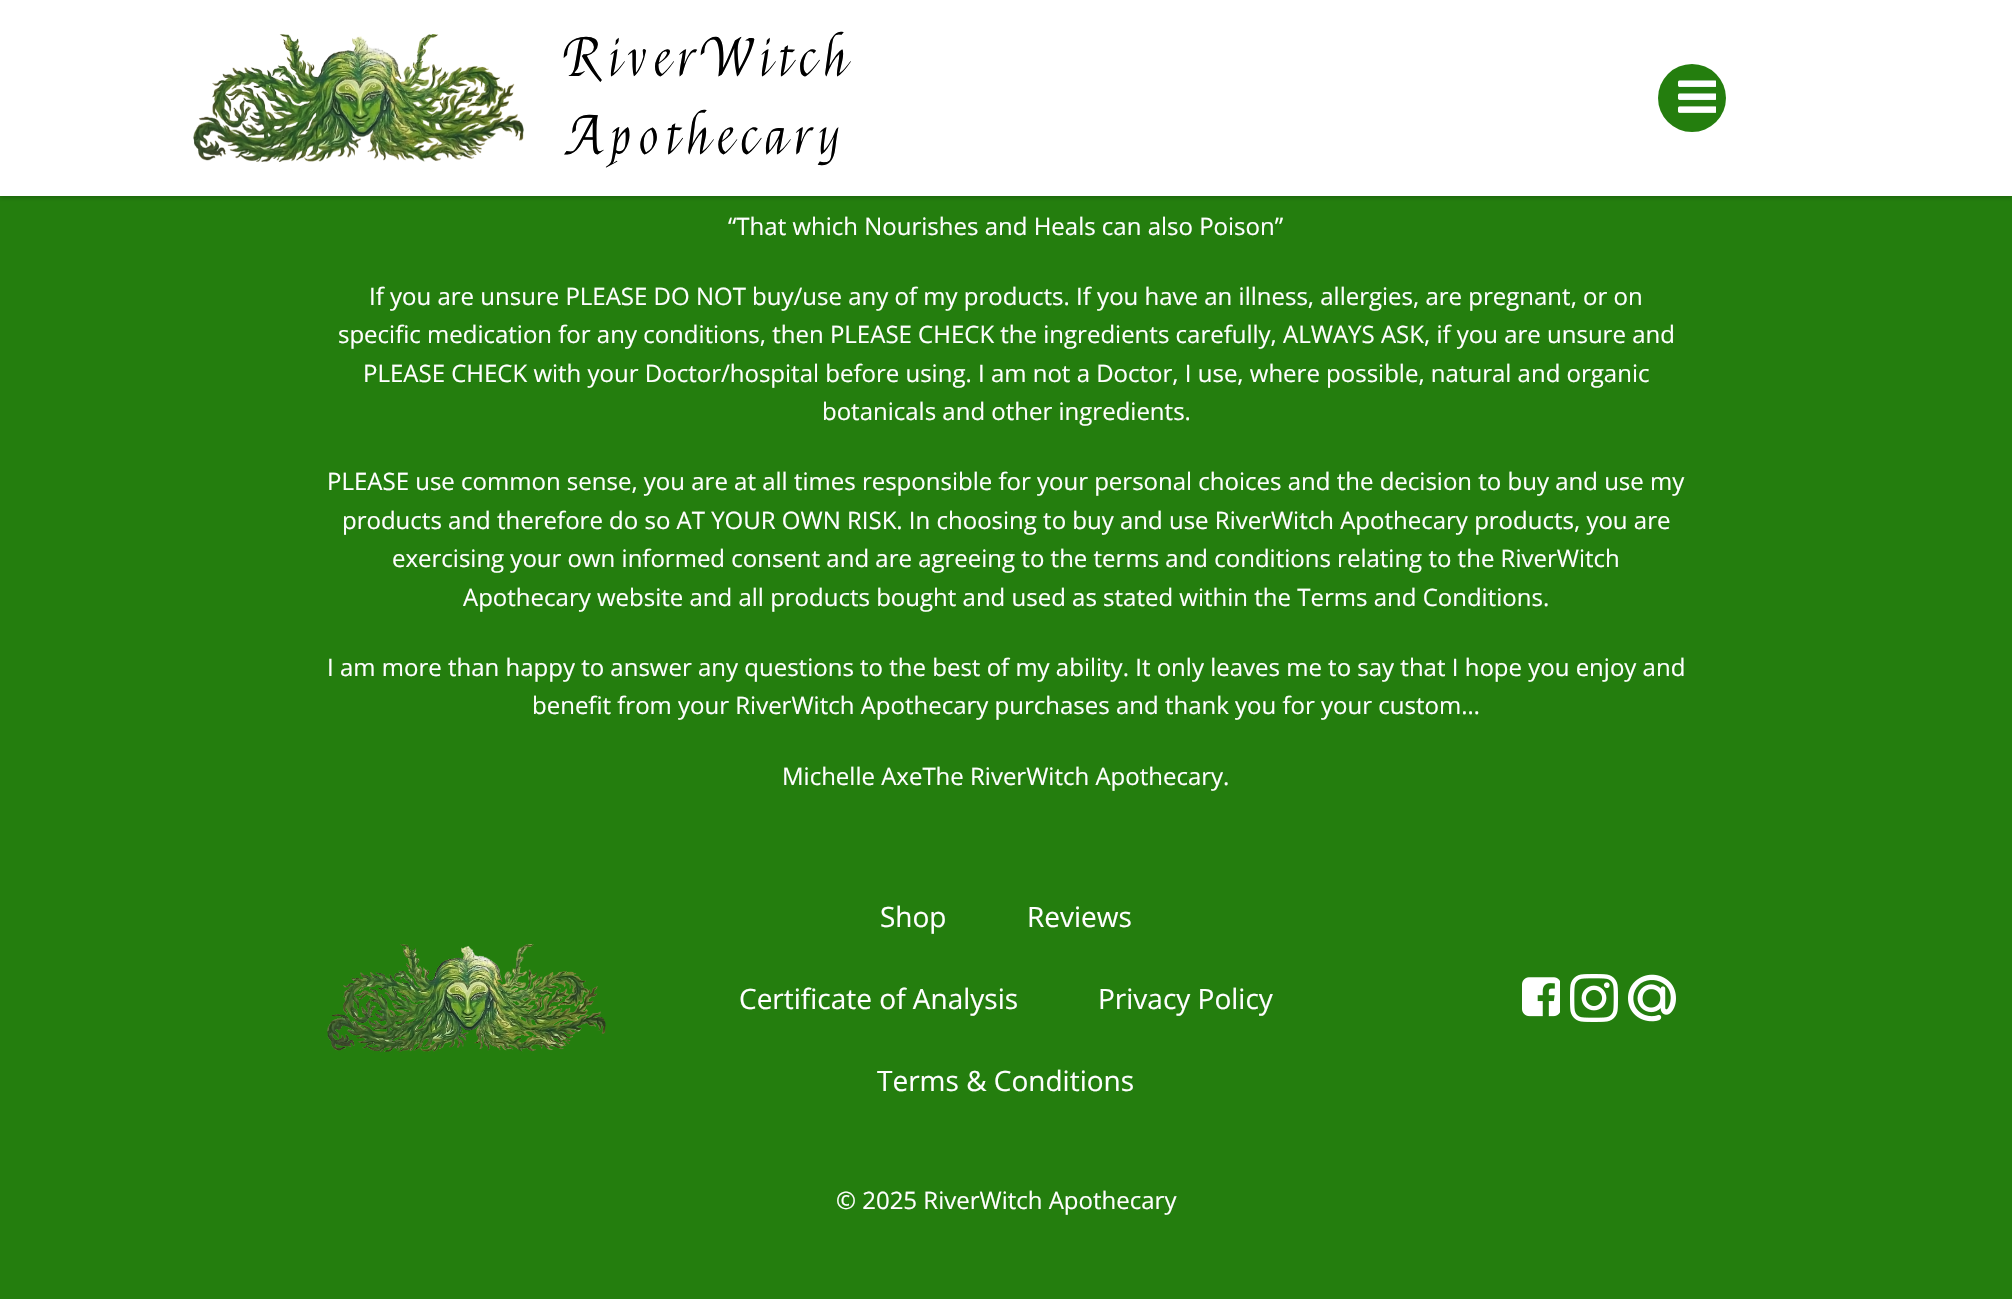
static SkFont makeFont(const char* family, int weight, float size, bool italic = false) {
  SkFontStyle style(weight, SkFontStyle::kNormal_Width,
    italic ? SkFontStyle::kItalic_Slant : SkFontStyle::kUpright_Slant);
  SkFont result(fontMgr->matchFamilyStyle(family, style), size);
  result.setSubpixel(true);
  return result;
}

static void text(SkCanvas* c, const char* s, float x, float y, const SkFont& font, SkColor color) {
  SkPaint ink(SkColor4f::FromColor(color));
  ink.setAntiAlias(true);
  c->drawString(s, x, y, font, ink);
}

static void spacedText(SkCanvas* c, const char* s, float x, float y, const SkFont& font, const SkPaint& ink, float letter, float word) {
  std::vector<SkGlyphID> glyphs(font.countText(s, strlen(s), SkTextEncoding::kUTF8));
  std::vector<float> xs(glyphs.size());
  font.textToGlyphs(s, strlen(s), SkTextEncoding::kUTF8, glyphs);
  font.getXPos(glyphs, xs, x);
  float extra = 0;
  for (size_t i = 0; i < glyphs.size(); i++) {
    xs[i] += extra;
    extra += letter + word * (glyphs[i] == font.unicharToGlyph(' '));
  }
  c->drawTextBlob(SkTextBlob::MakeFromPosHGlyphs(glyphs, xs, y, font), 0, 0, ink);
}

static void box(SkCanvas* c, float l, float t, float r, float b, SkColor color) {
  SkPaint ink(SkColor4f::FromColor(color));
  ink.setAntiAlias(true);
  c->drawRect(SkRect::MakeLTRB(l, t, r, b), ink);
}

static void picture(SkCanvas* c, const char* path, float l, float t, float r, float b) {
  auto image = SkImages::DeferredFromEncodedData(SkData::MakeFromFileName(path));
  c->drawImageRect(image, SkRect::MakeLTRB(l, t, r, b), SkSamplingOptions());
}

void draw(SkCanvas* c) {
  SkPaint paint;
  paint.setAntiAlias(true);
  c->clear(0xff247e0e);
  paint.setColor(0x33000000);
  paint.setMaskFilter(SkMaskFilter::MakeBlur(kNormal_SkBlurStyle, 2));
  c->drawRect(SkRect::MakeLTRB(0, 2, 2012, 198), paint);
  paint.setMaskFilter(nullptr);
  box(c, 0, 0, 2012, 196, 0xffffffff);
  picture(c, "img_01.png", 193, 34, 524, 162);
  SkFont face1 = makeFont("Felipa", 400, 52);
  paint.setColor(0xff000000);
  spacedText(c, "RiverWitch", 564, 76, face1, paint, 8, 0);
  spacedText(c, "Apothecary", 569, 154, face1, paint, 8, 0);
  paint.setColor(0xff247e0e);
  c->drawCircle(1692, 98, 34, paint);
  picture(c, "img_02.png", 1678, 80, 1716, 113);
  SkFont face2 = makeFont("Open Sans", 400, 24);
  text(c, "“That which Nourishes and Heals can also Poison”", 728, 235, face2, 0xffffffff);
  text(c, "If you are unsure PLEASE DO NOT buy/use any of my products. If you have an illness, allergies, are pregnant, or on", 369, 305, face2, 0xffffffff);
  text(c, "specific medication for any conditions, then PLEASE CHECK the ingredients carefully, ALWAYS ASK, if you are unsure and", 338, 343, face2, 0xffffffff);
  text(c, "PLEASE CHECK with your Doctor/hospital before using. I am not a Doctor, I use, where possible, natural and organic", 363, 382, face2, 0xffffffff);
  text(c, "botanicals and other ingredients.", 822, 420, face2, 0xffffffff);
  text(c, "PLEASE use common sense, you are at all times responsible for your personal choices and the decision to buy and use my", 327, 490, face2, 0xffffffff);
  text(c, "products and therefore do so AT YOUR OWN RISK. In choosing to buy and use RiverWitch Apothecary products, you are", 342, 529, face2, 0xffffffff);
  text(c, "exercising your own informed consent and are agreeing to the terms and conditions relating to the RiverWitch", 392, 567, face2, 0xffffffff);
  text(c, "Apothecary website and all products bought and used as stated within the Terms and Conditions.", 463, 606, face2, 0xffffffff);
  text(c, "I am more than happy to answer any questions to the best of my ability. It only leaves me to say that I hope you enjoy and", 327, 676, face2, 0xffffffff);
  text(c, "benefit from your RiverWitch Apothecary purchases and thank you for your custom…", 532, 714, face2, 0xffffffff);
  text(c, "Michelle AxeThe RiverWitch Apothecary.", 782, 785, face2, 0xffffffff);
  picture(c, "img_03.png", 327, 944, 606, 1052);
  SkFont face3 = makeFont("Open Sans", 400, 28);
  text(c, "Shop", 880, 927, face3, 0xffffffff);
  text(c, "Reviews", 1027, 927, face3, 0xffffffff);
  text(c, "Certificate of Analysis", 739, 1009, face3, 0xffffffff);
  text(c, "Privacy Policy", 1098, 1009, face3, 0xffffffff);
  text(c, "Terms & Conditions", 877, 1091, face3, 0xffffffff);
  picture(c, "img_04.png", 1522, 977, 1560, 1017);
  picture(c, "img_05.png", 1570, 974, 1618, 1022);
  picture(c, "img_06.png", 1628, 974, 1676, 1022);
  text(c, "© 2025 RiverWitch Apothecary", 836, 1209, face2, 0xffffffff);
}
